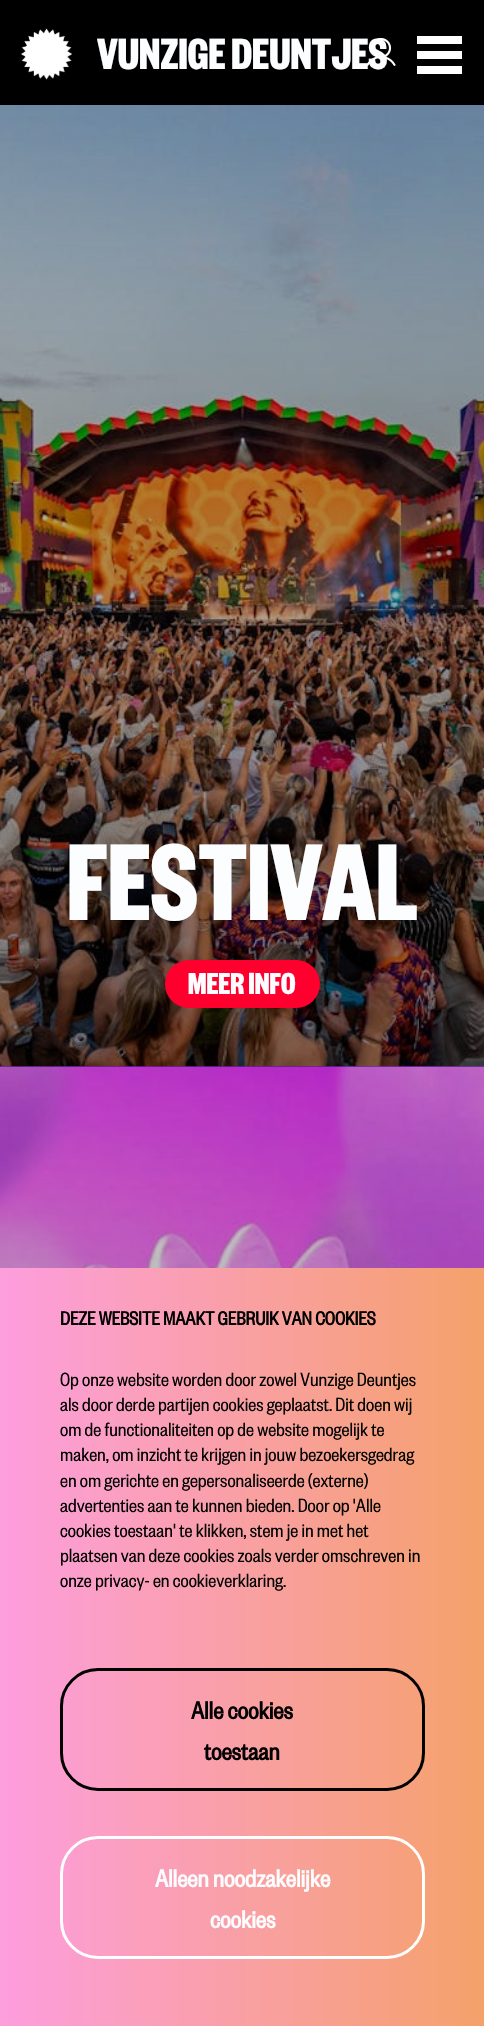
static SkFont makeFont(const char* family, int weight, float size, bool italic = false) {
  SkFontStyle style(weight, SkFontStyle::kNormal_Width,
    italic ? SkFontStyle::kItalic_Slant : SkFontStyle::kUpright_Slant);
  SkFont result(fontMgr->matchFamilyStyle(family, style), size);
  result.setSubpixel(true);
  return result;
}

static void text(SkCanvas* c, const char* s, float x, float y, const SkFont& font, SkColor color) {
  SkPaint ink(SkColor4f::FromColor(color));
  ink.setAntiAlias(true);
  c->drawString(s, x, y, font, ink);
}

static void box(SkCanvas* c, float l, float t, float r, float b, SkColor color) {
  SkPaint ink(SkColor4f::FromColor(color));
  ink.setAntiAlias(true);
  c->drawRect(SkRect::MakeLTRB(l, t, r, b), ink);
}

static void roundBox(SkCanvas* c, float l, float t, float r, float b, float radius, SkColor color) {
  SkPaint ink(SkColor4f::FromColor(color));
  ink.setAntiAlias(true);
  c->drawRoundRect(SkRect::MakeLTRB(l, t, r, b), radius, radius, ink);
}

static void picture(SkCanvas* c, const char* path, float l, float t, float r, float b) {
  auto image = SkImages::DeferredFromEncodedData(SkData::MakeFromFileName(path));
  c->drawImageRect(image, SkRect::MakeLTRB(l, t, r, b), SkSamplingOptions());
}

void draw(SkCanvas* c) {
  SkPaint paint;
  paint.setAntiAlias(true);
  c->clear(0xff5d0edf);
  box(c, 0, 0, 484, 105, 0xff000000);
  picture(c, "img_01.png", 21, 28, 72, 80);
  SkFont face1 = makeFont("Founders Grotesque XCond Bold", 700, 48);
  text(c, "VUNZIGE DEUNTJES", 97, 69, face1, 0xfffcfdff);
  picture(c, "img_02.png", 367, 38, 396, 66);
  box(c, 417, 36, 462, 44, 0xffffffff);
  box(c, 417, 51, 462, 59, 0xffffffff);
  box(c, 417, 66, 462, 74, 0xffffffff);
  picture(c, "img_03.png", 0, 105, 484, 1067);
  {
    const SkColor colors[] = {0x38000000, 0x4d000000, 0x66000000};
    const float stops[] = {0, 0.47f, 1};
    const SkPoint ends[] = {{242, 105}, {242, 1067}};
    paint.setShader(SkGradientShader::MakeLinear(ends, colors, stops, 3, SkTileMode::kClamp));
    paint.setAlpha(255);
  }
  c->drawRect(SkRect::MakeLTRB(0, 105, 484, 1067), paint);
  SkFont face2 = makeFont("Founders Grotesque XCond Bold", 700, 120);
  text(c, "FESTIVAL", 67, 920, face2, 0xfffcfdff);
  roundBox(c, 165, 960, 320, 1008, 24, 0xffff002e);
  SkFont face3 = makeFont("Founders Grotesque XCond Bold", 700, 33.5f);
  text(c, "MEER INFO", 188, 994, face3, 0xfffcfdff);
  picture(c, "img_04.png", 0, 1066, 484, 1268);
  {
    const SkColor colors[] = {0xfffd9edd, 0xfff5a16a};
    const float stops[] = {0.01f, 1};
    const SkPoint ends[] = {{0, 1647}, {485, 1647}};
    paint.setShader(SkGradientShader::MakeLinear(ends, colors, stops, 2, SkTileMode::kClamp));
    paint.setAlpha(255);
  }
  c->drawRect(SkRect::MakeLTRB(0, 1268, 484, 2026), paint);
  SkFont face4 = makeFont("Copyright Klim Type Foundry", 700, 21);
  text(c, "DEZE WEBSITE MAAKT GEBRUIK VAN COOKIES", 60, 1325, face4, 0xff000000);
  SkFont face5 = makeFont("Copyright Klim Type Foundry", 400, 21);
  text(c, "Op onze website worden door zowel Vunzige Deuntjes", 60, 1386, face5, 0xff000000);
  text(c, "als door derde partijen cookies geplaatst. Dit doen wij", 60, 1411, face5, 0xff000000);
  text(c, "om de functionaliteiten op de website mogelijk te", 60, 1436, face5, 0xff000000);
  text(c, "maken, om inzicht te krijgen in jouw bezoekersgedrag", 60, 1461, face5, 0xff000000);
  text(c, "en om gerichte en gepersonaliseerde (externe)", 60, 1487, face5, 0xff000000);
  text(c, "advertenties aan te kunnen bieden. Door op 'Alle", 60, 1512, face5, 0xff000000);
  text(c, "cookies toestaan' te klikken, stem je in met het", 60, 1537, face5, 0xff000000);
  text(c, "plaatsen van deze cookies zoals verder omschreven in", 60, 1562, face5, 0xff000000);
  text(c, "onze privacy- en cookieverklaring.", 60, 1587, face5, 0xff000000);
  paint.setStyle(SkPaint::kStroke_Style);
  paint.setStrokeWidth(3);
  paint.setShader(nullptr);
  paint.setColor(0xff000000);
  c->drawRoundRect(SkRect::MakeLTRB(61.5f, 1669.5f, 423.5f, 1789.5f), 36.5f, 36.5f, paint);
  SkFont face6 = makeFont("Copyright Klim Type Foundry", 700, 27);
  text(c, "Alle cookies", 191, 1719, face6, 0xff000000);
  text(c, "toestaan", 204, 1760, face6, 0xff000000);
  paint.setColor(0xffffffff);
  c->drawRoundRect(SkRect::MakeLTRB(61.5f, 1837.5f, 423.5f, 1957.5f), 36.5f, 36.5f, paint);
  text(c, "Alleen noodzakelijke", 155, 1887, face6, 0xfffcfdff);
  text(c, "cookies", 210, 1928, face6, 0xfffcfdff);
}
